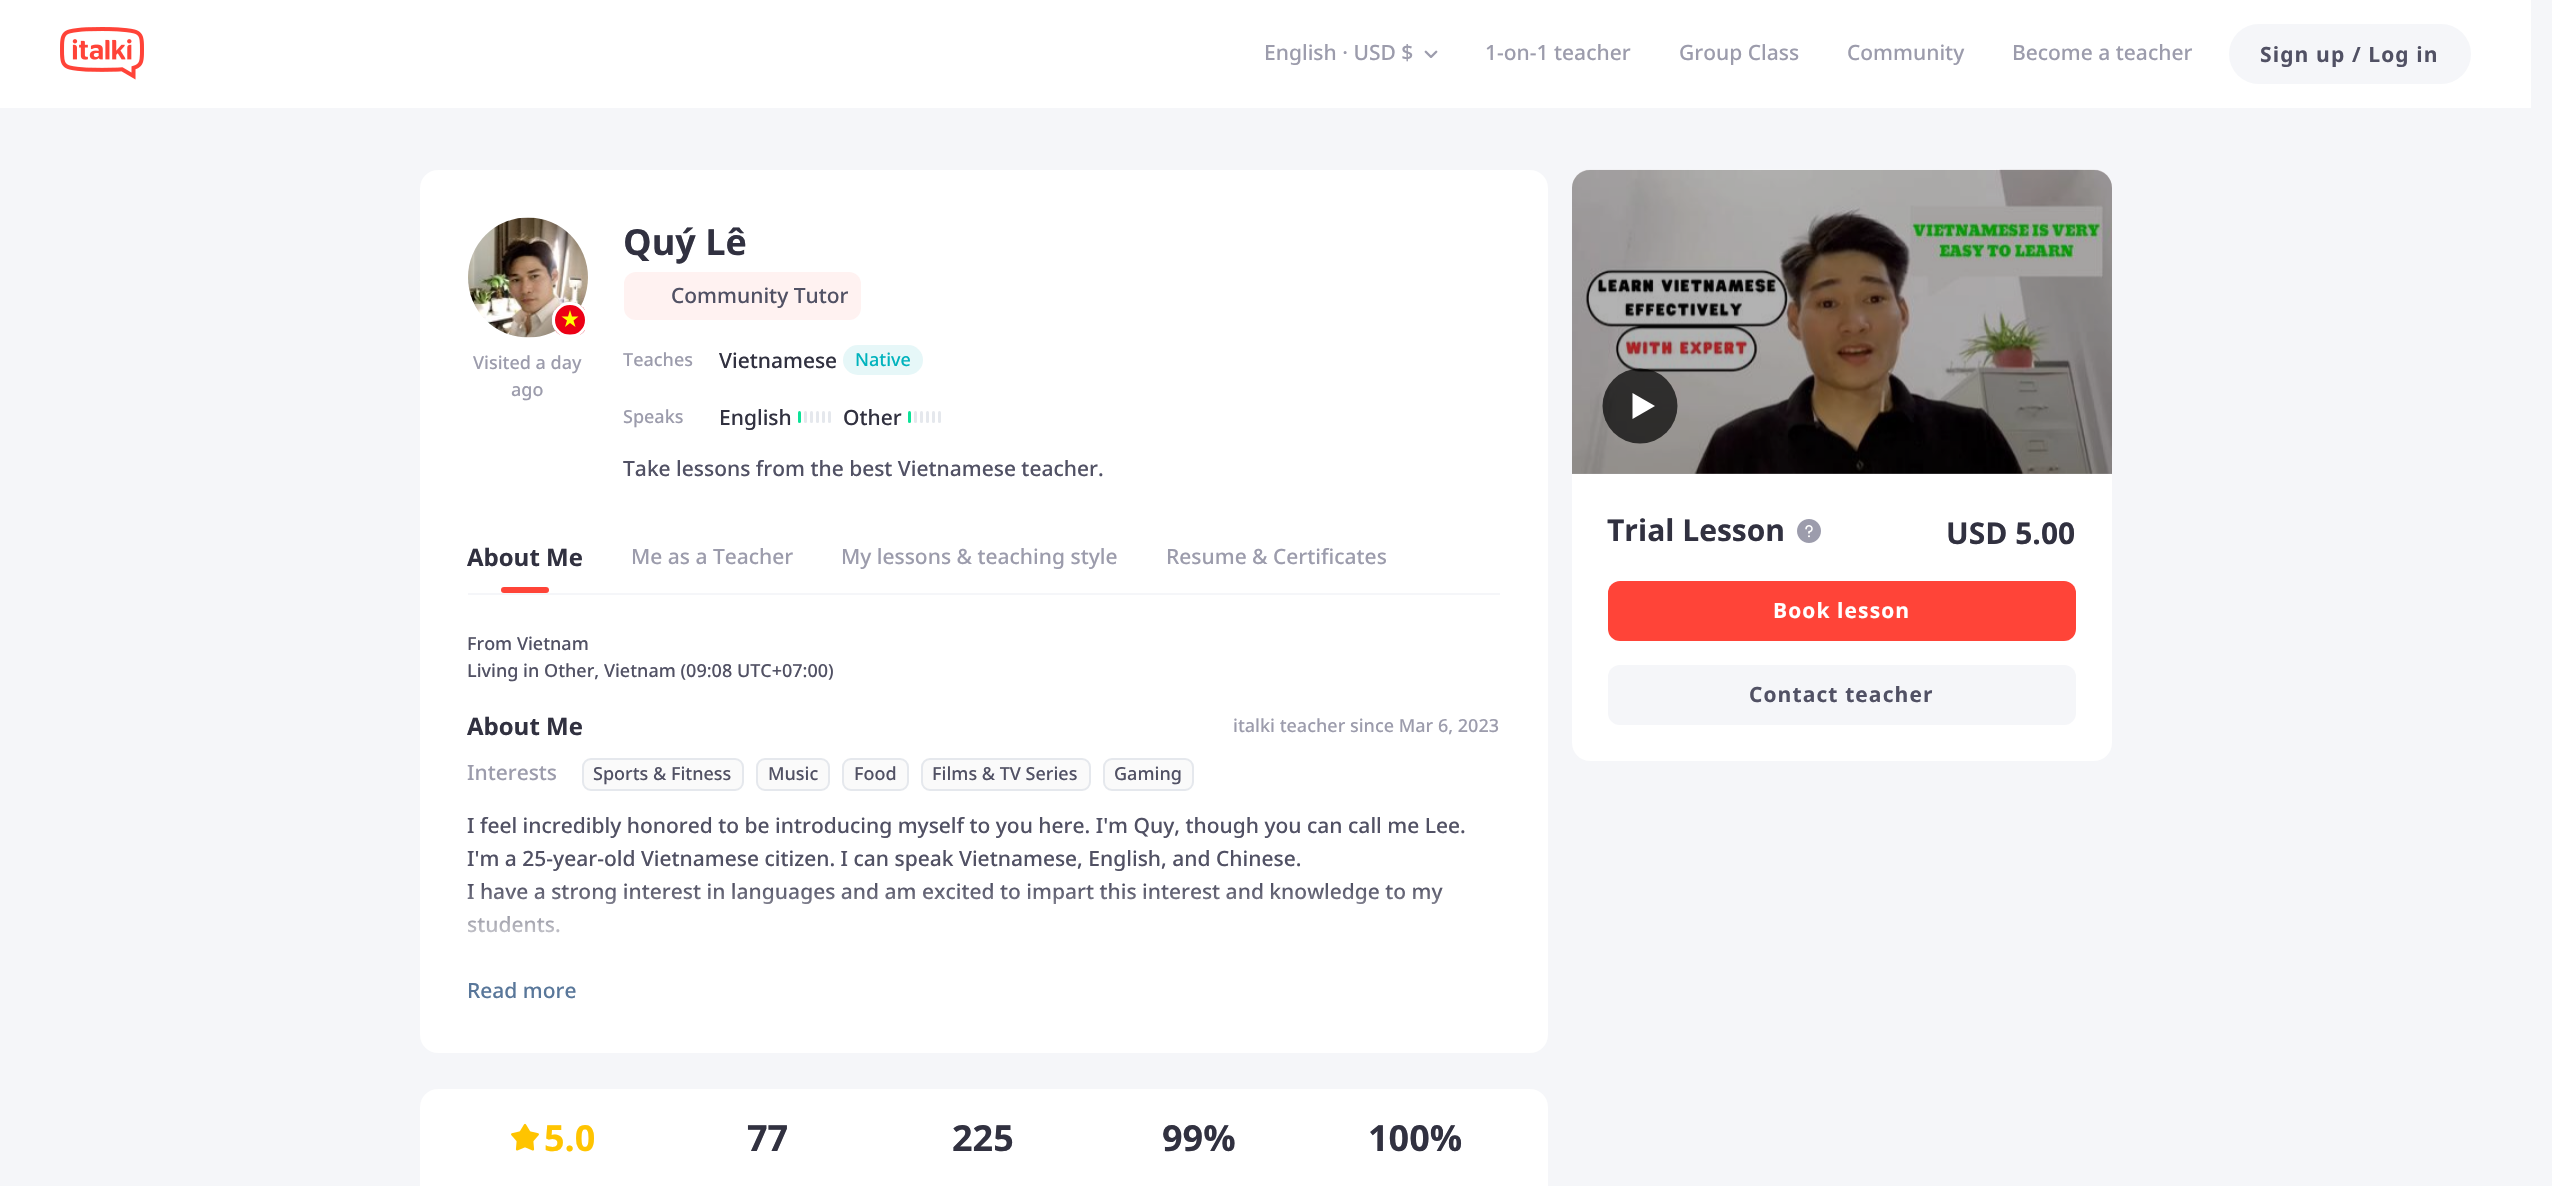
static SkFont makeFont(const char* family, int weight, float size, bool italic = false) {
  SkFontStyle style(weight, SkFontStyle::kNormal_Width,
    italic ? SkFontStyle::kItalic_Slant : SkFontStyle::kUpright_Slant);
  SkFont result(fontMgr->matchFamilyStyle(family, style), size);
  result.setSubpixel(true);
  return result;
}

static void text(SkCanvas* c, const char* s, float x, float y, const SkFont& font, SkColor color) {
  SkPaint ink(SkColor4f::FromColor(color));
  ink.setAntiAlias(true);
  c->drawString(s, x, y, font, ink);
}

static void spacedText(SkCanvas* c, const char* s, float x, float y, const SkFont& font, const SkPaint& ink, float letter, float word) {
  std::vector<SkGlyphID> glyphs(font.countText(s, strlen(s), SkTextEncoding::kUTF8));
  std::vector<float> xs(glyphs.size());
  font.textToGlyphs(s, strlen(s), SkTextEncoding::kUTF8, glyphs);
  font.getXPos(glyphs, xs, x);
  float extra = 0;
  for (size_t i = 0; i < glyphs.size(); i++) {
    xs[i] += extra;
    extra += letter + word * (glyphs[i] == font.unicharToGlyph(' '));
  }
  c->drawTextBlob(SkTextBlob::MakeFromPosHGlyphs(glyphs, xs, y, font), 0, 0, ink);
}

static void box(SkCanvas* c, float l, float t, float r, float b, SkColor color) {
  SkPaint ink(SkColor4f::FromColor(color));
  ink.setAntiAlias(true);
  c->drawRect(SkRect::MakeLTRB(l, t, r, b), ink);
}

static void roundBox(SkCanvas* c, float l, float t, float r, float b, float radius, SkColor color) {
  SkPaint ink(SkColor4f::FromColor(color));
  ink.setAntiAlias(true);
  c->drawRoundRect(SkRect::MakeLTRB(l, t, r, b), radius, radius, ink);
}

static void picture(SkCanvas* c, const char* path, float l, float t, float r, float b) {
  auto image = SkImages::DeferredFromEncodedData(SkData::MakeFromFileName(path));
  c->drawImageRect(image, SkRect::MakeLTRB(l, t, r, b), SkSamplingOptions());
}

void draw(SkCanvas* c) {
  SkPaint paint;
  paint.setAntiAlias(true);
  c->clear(0xfff5f6f9);
  box(c, 0, 0, 2531, 108, 0xffffffff);
  picture(c, "img_01.png", 60, 27, 144, 80);
  SkFont face1 = makeFont("Noto Sans", 500, 21);
  text(c, "English · USD $", 1264, 60, face1, 0xff9c9cac);
  picture(c, "img_02.png", 1424, 50, 1438, 58);
  text(c, "1-on-1 teacher", 1485, 60, face1, 0xff9c9cac);
  text(c, "Group Class", 1679, 60, face1, 0xff9c9cac);
  text(c, "Community", 1847, 60, face1, 0xff9c9cac);
  text(c, "Become a teacher", 2012, 60, face1, 0xff9c9cac);
  roundBox(c, 2229, 24, 2471, 84, 30, 0xfff5f6f9);
  SkFont face2 = makeFont("Noto Sans", 700, 21);
  paint.setColor(0xff515164);
  spacedText(c, "Sign up / Log in", 2260, 62, face2, paint, 1.1f, 0);
  roundBox(c, 420, 170, 1548, 1053, 18, 0xffffffff);
  picture(c, "img_03.png", 468, 217, 588, 338);
  paint.setColor(0xfff5f6f9);
  c->drawCircle(570, 320, 18, paint);
  c->save();
  c->clipRect(SkRect::MakeLTRB(555, 305, 585, 335));
  paint.setColor(0xffec0015);
  c->drawPath(SkPathBuilder().moveTo(580.5f, 334.5f).lineTo(559.5f, 334.5f).cubicTo(557.5f, 333.5f, 556, 331.5f, 555, 330).lineTo(555, 310).cubicTo(556.5f, 308, 558.5f, 306, 561, 304.5f).lineTo(579, 304.5f).cubicTo(581.5f, 306, 583.5f, 308, 585, 310).lineTo(585, 330).cubicTo(584, 331.5f, 582.5f, 333.5f, 580.5f, 334.5f).close().detach(), paint);
  c->restore();
  paint.setColor(0xffffff00);
  c->drawPath(SkPathBuilder(SkPathFillType::kEvenOdd).moveTo(575.5f, 327).lineTo(570, 323).lineTo(565, 327).lineTo(567, 320.5f).lineTo(561.5f, 316.5f).lineTo(568, 316.5f).lineTo(570, 310).lineTo(572, 316.5f).lineTo(578.5f, 316.5f).lineTo(573.5f, 320.5f).close().detach(), paint);
  paint.setStyle(SkPaint::kStroke_Style);
  paint.setStrokeWidth(3);
  paint.setColor(0xffffffff);
  c->drawCircle(570, 320, 16.5f, paint);
  SkFont face3 = makeFont("Noto Sans", 500, 18);
  text(c, "Visited a day", 473, 369, face3, 0xff9c9cac);
  text(c, "ago", 511, 396, face3, 0xff9c9cac);
  SkFont face4 = makeFont("Noto Sans", 700, 36);
  text(c, "Quý Lê", 623, 255, face4, 0xff313140);
  roundBox(c, 624, 272, 861, 320, 12, 0xfffff2f1);
  text(c, "Community Tutor", 671, 303, face1, 0xff515164);
  text(c, "Teaches", 623, 366, face3, 0xff9c9cac);
  text(c, "Vietnamese", 719, 368, face1, 0xff313140);
  roundBox(c, 843, 345, 923, 375, 15, 0xffe6f7f8);
  text(c, "Native", 855, 366, face3, 0xff00b3bd);
  text(c, "Speaks", 623, 423, face3, 0xff9c9cac);
  text(c, "English", 719, 425, face1, 0xff313140);
  roundBox(c, 798, 411, 801, 423, 1.5f, 0xff0de298);
  roundBox(c, 804, 411, 807, 423, 1.5f, 0xffe5e8ed);
  roundBox(c, 810, 411, 813, 423, 1.5f, 0xffe5e8ed);
  roundBox(c, 816, 411, 819, 423, 1.5f, 0xffe5e8ed);
  roundBox(c, 822, 411, 825, 423, 1.5f, 0xffe5e8ed);
  roundBox(c, 828, 411, 831, 423, 1.5f, 0xffe5e8ed);
  text(c, "Other", 843, 425, face1, 0xff313140);
  roundBox(c, 908, 411, 911, 423, 1.5f, 0xff0de298);
  roundBox(c, 914, 411, 917, 423, 1.5f, 0xffe5e8ed);
  roundBox(c, 920, 411, 923, 423, 1.5f, 0xffe5e8ed);
  roundBox(c, 926, 411, 929, 423, 1.5f, 0xffe5e8ed);
  roundBox(c, 932, 411, 935, 423, 1.5f, 0xffe5e8ed);
  roundBox(c, 938, 411, 941, 423, 1.5f, 0xffe5e8ed);
  text(c, "Take lessons from the best Vietnamese teacher.", 623, 476, face1, 0xff515164);
  box(c, 468, 593, 1500, 595, 0xfff5f6f9);
  SkFont face5 = makeFont("Noto Sans", 700, 24);
  text(c, "About Me", 467, 566, face5, 0xff313140);
  text(c, "Me as a Teacher", 631, 564, face1, 0xff9c9cac);
  text(c, "My lessons & teaching style", 841, 564, face1, 0xff9c9cac);
  text(c, "Resume & Certificates", 1166, 564, face1, 0xff9c9cac);
  roundBox(c, 501, 587, 549, 593, 3, 0xffff4438);
  text(c, "From Vietnam", 467, 650, face3, 0xff515164);
  text(c, "Living in Other, Vietnam (09:08 UTC+07:00)", 467, 677, face3, 0xff515164);
  text(c, "About Me", 467, 735, face5, 0xff313140);
  text(c, "italki teacher since Mar 6, 2023", 1233, 732, face3, 0xff9c9cac);
  text(c, "Interests", 467, 780, face1, 0xff9c9cac);
  paint.setStyle(SkPaint::kFill_Style);
  paint.setColor(0xfffafafa);
  c->drawRoundRect(SkRect::MakeLTRB(583, 759, 743, 790), 8, 8, paint);
  paint.setStyle(SkPaint::kStroke_Style);
  paint.setStrokeWidth(2);
  paint.setColor(0xffe5e8ed);
  c->drawRoundRect(SkRect::MakeLTRB(583, 759, 743, 790), 8, 8, paint);
  text(c, "Sports & Fitness", 593, 780, face3, 0xff515164);
  paint.setStyle(SkPaint::kFill_Style);
  paint.setColor(0xfffafafa);
  c->drawRoundRect(SkRect::MakeLTRB(757, 759, 829, 790), 8, 8, paint);
  paint.setStyle(SkPaint::kStroke_Style);
  paint.setColor(0xffe5e8ed);
  c->drawRoundRect(SkRect::MakeLTRB(757, 759, 829, 790), 8, 8, paint);
  text(c, "Music", 768, 780, face3, 0xff515164);
  paint.setStyle(SkPaint::kFill_Style);
  paint.setColor(0xfffafafa);
  c->drawRoundRect(SkRect::MakeLTRB(843, 759, 908, 790), 8, 8, paint);
  paint.setStyle(SkPaint::kStroke_Style);
  paint.setColor(0xffe5e8ed);
  c->drawRoundRect(SkRect::MakeLTRB(843, 759, 908, 790), 8, 8, paint);
  text(c, "Food", 854, 780, face3, 0xff515164);
  paint.setStyle(SkPaint::kFill_Style);
  paint.setColor(0xfffafafa);
  c->drawRoundRect(SkRect::MakeLTRB(922, 759, 1090, 790), 8, 8, paint);
  paint.setStyle(SkPaint::kStroke_Style);
  paint.setColor(0xffe5e8ed);
  c->drawRoundRect(SkRect::MakeLTRB(922, 759, 1090, 790), 8, 8, paint);
  text(c, "Films & TV Series", 932, 780, face3, 0xff515164);
  paint.setStyle(SkPaint::kFill_Style);
  paint.setColor(0xfffafafa);
  c->drawRoundRect(SkRect::MakeLTRB(1104, 759, 1193, 790), 8, 8, paint);
  paint.setStyle(SkPaint::kStroke_Style);
  paint.setColor(0xffe5e8ed);
  c->drawRoundRect(SkRect::MakeLTRB(1104, 759, 1193, 790), 8, 8, paint);
  text(c, "Gaming", 1114, 780, face3, 0xff515164);
  text(c, "I feel incredibly honored to be introducing myself to you here. I'm Quy, though you can call me Lee.", 467, 833, face1, 0xff515164);
  text(c, "I'm a 25-year-old Vietnamese citizen. I can speak Vietnamese, English, and Chinese.", 467, 866, face1, 0xff515164);
  text(c, "I have a strong interest in languages and am excited to impart this interest and knowledge to my", 467, 899, face1, 0xff515164);
  text(c, "students.", 467, 932, face1, 0xff515164);
  paint.setStyle(SkPaint::kFill_Style);
  {
    const SkColor colors[] = {0xffffffff, 0xccffffff, 0x00ffffff};
    const float stops[] = {0, 0.5f, 1};
    const SkPoint ends[] = {{984, 1005}, {984, 885}};
    paint.setShader(SkGradientShader::MakeLinear(ends, colors, stops, 3, SkTileMode::kClamp));
    paint.setAlpha(255);
  }
  c->drawRect(SkRect::MakeLTRB(468, 887, 1443, 933), paint);
  text(c, "Read more", 467, 998, face1, 0xff59779a);
  roundBox(c, 420, 1089, 1548, 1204, 18, 0xffffffff);
  picture(c, "img_04.png", 511, 1123, 539, 1151);
  text(c, "5.0", 544, 1151, face4, 0xffffc400);
  text(c, "77", 747, 1151, face4, 0xff313140);
  text(c, "225", 952, 1151, face4, 0xff313140);
  text(c, "99%", 1162, 1151, face4, 0xff313140);
  text(c, "100%", 1368, 1151, face4, 0xff313140);
  picture(c, "img_05.png", 1572, 169, 2112, 474);
  paint.setShader(nullptr);
  paint.setColor(0x4d000000);
  c->drawPath(SkPathBuilder().moveTo(1590, 170).lineTo(2094, 170).cubicTo(2104, 170, 2112, 178, 2112, 188).lineTo(2112, 474).lineTo(1572, 474).lineTo(1572, 188).cubicTo(1572, 178, 1580, 170, 1590, 170).close().detach(), paint);
  paint.setColor(0xb3000000);
  c->drawCircle(1640, 406, 37.5f, paint);
  paint.setColor(0xffffffff);
  c->drawPath(SkPathBuilder().moveTo(1655, 406).lineTo(1632.5f, 419).lineTo(1632.5f, 393).close().detach(), paint);
  c->drawPath(SkPathBuilder().moveTo(1572, 474).lineTo(2112, 474).lineTo(2112, 743).cubicTo(2112, 753, 2104, 761, 2094, 761).lineTo(1590, 761).cubicTo(1580, 761, 1572, 753, 1572, 743).close().detach(), paint);
  SkFont face6 = makeFont("Noto Sans", 700, 30);
  text(c, "Trial Lesson", 1607, 541, face6, 0xff313140);
  picture(c, "img_06.png", 1797, 519, 1821, 543);
  text(c, "USD 5.00", 1946, 544, face6, 0xff313140);
  roundBox(c, 1608, 581, 2076, 641, 12, 0xffff4438);
  spacedText(c, "Book lesson", 1773, 618, face2, paint, 1.1f, 0);
  roundBox(c, 1608, 665, 2076, 725, 12, 0xfff5f6f9);
  paint.setColor(0xff515164);
  spacedText(c, "Contact teacher", 1749, 702, face2, paint, 1.1f, 0);
}
